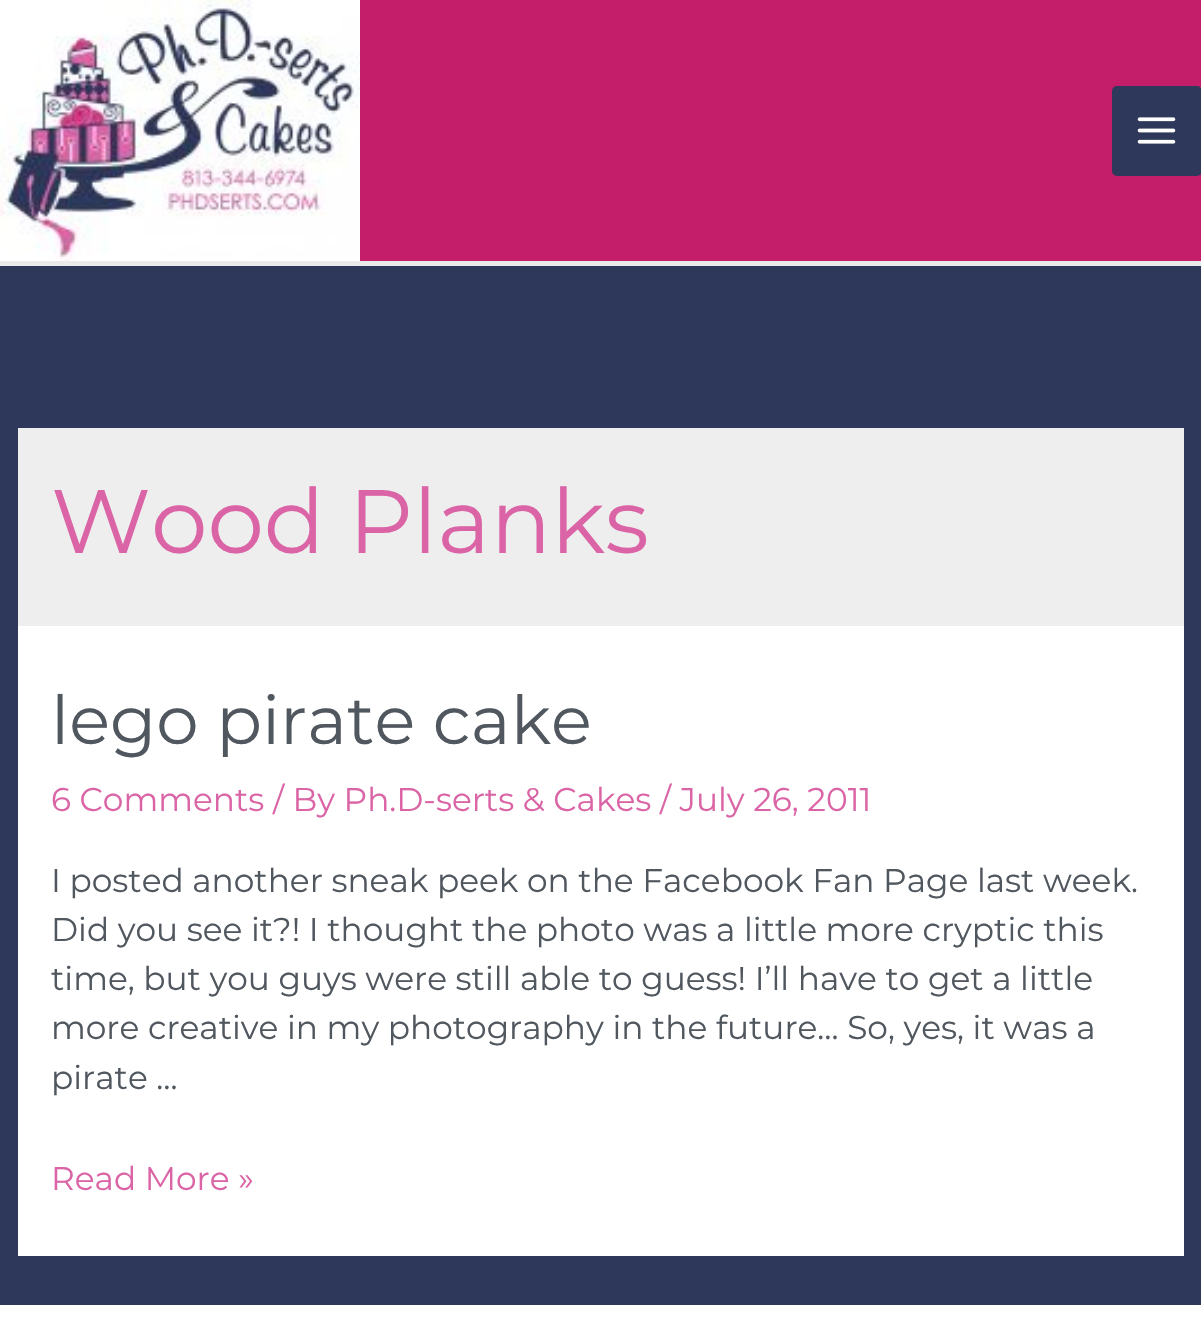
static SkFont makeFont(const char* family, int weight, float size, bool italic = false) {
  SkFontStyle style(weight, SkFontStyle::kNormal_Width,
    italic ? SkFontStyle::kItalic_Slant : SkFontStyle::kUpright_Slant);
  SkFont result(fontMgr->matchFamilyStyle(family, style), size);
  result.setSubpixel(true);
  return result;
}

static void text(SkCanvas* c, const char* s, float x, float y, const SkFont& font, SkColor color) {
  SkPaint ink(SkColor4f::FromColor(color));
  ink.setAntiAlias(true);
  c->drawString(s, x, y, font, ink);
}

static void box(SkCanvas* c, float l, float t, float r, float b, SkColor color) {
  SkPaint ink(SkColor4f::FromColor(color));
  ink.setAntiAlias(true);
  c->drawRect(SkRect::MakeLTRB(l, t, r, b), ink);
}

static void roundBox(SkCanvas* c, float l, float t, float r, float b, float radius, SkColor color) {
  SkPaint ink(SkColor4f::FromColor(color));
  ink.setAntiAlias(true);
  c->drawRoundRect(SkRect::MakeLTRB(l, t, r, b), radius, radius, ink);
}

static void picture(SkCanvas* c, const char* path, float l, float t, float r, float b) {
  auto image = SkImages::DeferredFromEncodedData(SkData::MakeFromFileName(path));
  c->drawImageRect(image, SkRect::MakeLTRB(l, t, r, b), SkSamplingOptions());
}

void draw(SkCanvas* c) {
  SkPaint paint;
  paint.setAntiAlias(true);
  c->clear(0xff2e385a);
  box(c, 360, 0, 1201, 261, 0xffc41e6a);
  box(c, 0, 261, 1201, 266, 0xffeaeaea);
  picture(c, "img_01.png", 0, 0, 360, 261);
  roundBox(c, 1112, 86, 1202, 176, 5, 0xff2e385a);
  picture(c, "img_02.png", 1137, 117, 1176, 144);
  box(c, 18, 428, 1184, 626, 0xffeeeeee);
  SkFont face1 = makeFont("Montserrat", 400, 90);
  text(c, "Wood Planks", 51, 553, face1, 0xffda64a6);
  box(c, 18, 626, 1184, 1256, 0xffffffff);
  SkFont face2 = makeFont("Montserrat", 400, 67.5f);
  text(c, "lego pirate cake", 51, 744, face2, 0xff50575e);
  SkFont face3 = makeFont("Montserrat", 400, 32.8f);
  text(c, "6 Comments / By Ph.D-serts & Cakes / July 26, 2011", 51, 811, face3, 0xffda64a6);
  text(c, "I posted another sneak peek on the Facebook Fan Page last week.", 51, 892, face3, 0xff50575e);
  text(c, "Did you see it?! I thought the photo was a little more cryptic this", 51, 941, face3, 0xff50575e);
  text(c, "time, but you guys were still able to guess! I’ll have to get a little", 51, 990, face3, 0xff50575e);
  text(c, "more creative in my photography in the future… So, yes, it was a", 51, 1039, face3, 0xff50575e);
  text(c, "pirate …", 51, 1089, face3, 0xff50575e);
  text(c, "Read More »", 51, 1190, face3, 0xffda64a6);
  box(c, 0, 1305, 1201, 1344, 0xffffffff);
}
